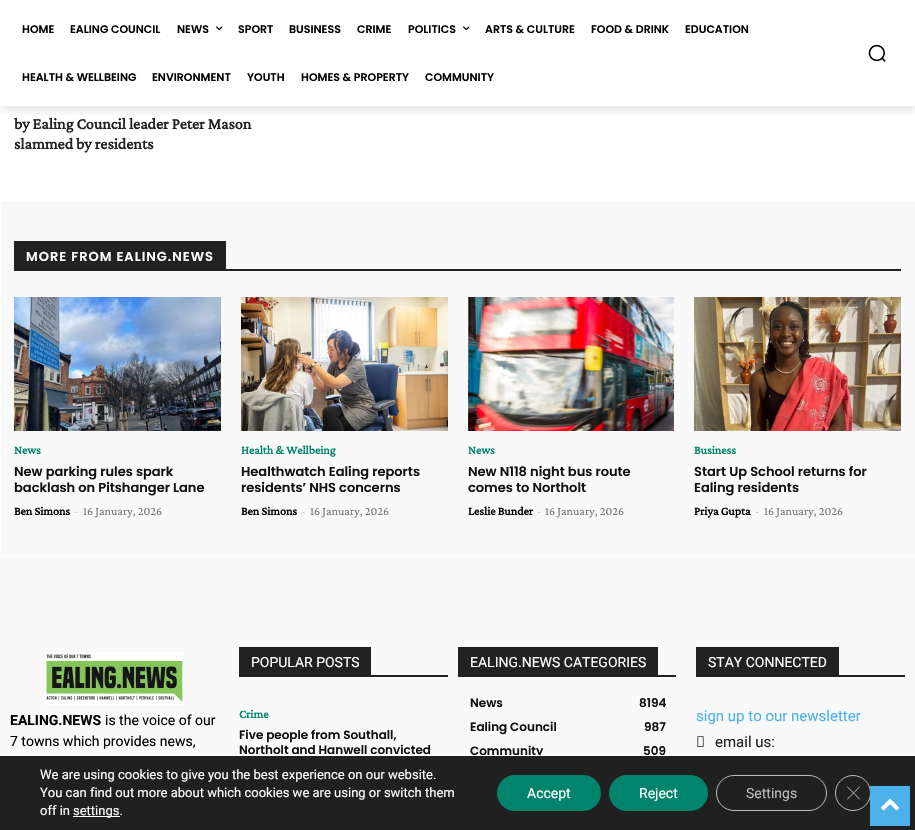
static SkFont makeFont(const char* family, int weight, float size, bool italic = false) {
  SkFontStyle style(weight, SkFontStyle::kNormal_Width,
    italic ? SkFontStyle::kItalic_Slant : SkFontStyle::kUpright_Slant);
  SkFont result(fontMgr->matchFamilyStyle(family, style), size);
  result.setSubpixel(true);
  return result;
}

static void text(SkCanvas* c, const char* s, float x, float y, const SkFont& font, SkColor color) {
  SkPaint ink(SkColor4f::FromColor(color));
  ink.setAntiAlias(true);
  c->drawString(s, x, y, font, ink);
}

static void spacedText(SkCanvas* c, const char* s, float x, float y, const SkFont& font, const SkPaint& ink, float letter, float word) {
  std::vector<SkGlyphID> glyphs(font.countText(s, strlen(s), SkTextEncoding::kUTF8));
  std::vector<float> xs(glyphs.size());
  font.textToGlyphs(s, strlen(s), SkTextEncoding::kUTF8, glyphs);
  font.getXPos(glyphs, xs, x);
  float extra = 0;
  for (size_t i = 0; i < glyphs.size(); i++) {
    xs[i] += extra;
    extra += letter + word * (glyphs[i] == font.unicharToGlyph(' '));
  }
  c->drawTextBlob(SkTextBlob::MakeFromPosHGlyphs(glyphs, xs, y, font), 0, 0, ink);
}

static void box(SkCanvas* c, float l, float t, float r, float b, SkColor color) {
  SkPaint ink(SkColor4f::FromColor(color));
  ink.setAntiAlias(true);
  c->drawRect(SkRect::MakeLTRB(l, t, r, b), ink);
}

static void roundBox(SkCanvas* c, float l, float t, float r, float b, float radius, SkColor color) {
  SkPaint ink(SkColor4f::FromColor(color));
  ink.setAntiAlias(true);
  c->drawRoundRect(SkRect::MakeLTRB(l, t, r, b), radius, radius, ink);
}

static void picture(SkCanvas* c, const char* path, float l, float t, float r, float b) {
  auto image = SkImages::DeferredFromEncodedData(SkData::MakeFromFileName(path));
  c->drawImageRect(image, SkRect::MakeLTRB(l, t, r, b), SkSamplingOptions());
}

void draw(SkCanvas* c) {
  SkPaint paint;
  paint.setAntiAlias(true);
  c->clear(0xffffffff);
  c->save();
  c->clipRect(SkRect::MakeLTRB(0, 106, 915, 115));
  paint.setColor(0x14000000);
  paint.setMaskFilter(SkMaskFilter::MakeBlur(kNormal_SkBlurStyle, 4));
  c->drawRect(SkRect::MakeLTRB(1, 6, 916, 112), paint);
  paint.setMaskFilter(nullptr);
  c->restore();
  SkFont face1 = makeFont("Poppins", 600, 11);
  text(c, "HOME", 22, 33, face1, 0xff000000);
  text(c, "EALING COUNCIL", 70, 33, face1, 0xff000000);
  text(c, "NEWS", 177, 33, face1, 0xff000000);
  picture(c, "img_01.png", 216, 26, 223, 31);
  text(c, "SPORT", 238, 33, face1, 0xff000000);
  text(c, "BUSINESS", 289, 33, face1, 0xff000000);
  text(c, "CRIME", 357, 33, face1, 0xff000000);
  text(c, "POLITICS", 408, 33, face1, 0xff000000);
  picture(c, "img_01.png", 463, 26, 470, 31);
  text(c, "ARTS & CULTURE", 485, 33, face1, 0xff000000);
  text(c, "FOOD & DRINK", 591, 33, face1, 0xff000000);
  text(c, "EDUCATION", 685, 33, face1, 0xff000000);
  text(c, "HEALTH & WELLBEING", 22, 81, face1, 0xff000000);
  text(c, "ENVIRONMENT", 152, 81, face1, 0xff000000);
  text(c, "YOUTH", 247, 81, face1, 0xff000000);
  text(c, "HOMES & PROPERTY", 301, 81, face1, 0xff000000);
  text(c, "COMMUNITY", 425, 81, face1, 0xff000000);
  picture(c, "img_02.png", 868, 44, 886, 62);
  SkFont face2 = makeFont("Crimson Pro", 700, 16);
  text(c, "by Ealing Council leader Peter Mason", 14, 129, face2, 0xff222222);
  text(c, "slammed by residents", 14, 149, face2, 0xff222222);
  box(c, 1, 201, 915, 555, 0xfff9f9f9);
  box(c, 14, 269, 901, 271, 0xff222222);
  box(c, 14, 241, 226, 269, 0xff222222);
  SkFont face3 = makeFont("Poppins", 600, 13);
  paint.setColor(0xffffffff);
  spacedText(c, "MORE FROM EALING.NEWS", 26, 261, face3, paint, 1, 0);
  picture(c, "img_03.png", 14, 297, 221, 431);
  SkFont face4 = makeFont("Crimson Pro", 700, 12);
  text(c, "News", 14, 454, face4, 0xff00846b);
  text(c, "New parking rules spark", 14, 476, face3, 0xff111111);
  text(c, "backlash on Pitshanger Lane", 14, 492, face3, 0xff111111);
  text(c, "Ben Simons", 14, 515, face4, 0xff000000);
  SkFont face5 = makeFont("Crimson Pro", 400, 12);
  text(c, "-", 74, 515, face5, 0xffcccccc);
  text(c, "16 January, 2026", 83, 515, face5, 0xff767676);
  picture(c, "img_04.png", 241, 297, 448, 431);
  text(c, "Health & Wellbeing", 241, 454, face4, 0xff00846b);
  text(c, "Healthwatch Ealing reports", 241, 476, face3, 0xff111111);
  text(c, "residents’ NHS concerns", 241, 492, face3, 0xff111111);
  text(c, "Ben Simons", 241, 515, face4, 0xff000000);
  text(c, "-", 301, 515, face5, 0xffcccccc);
  text(c, "16 January, 2026", 310, 515, face5, 0xff767676);
  picture(c, "img_05.png", 468, 297, 674, 431);
  text(c, "News", 468, 454, face4, 0xff00846b);
  text(c, "New N118 night bus route", 468, 476, face3, 0xff111111);
  text(c, "comes to Northolt", 468, 492, face3, 0xff111111);
  text(c, "Leslie Bunder", 468, 515, face4, 0xff000000);
  text(c, "-", 537, 515, face5, 0xffcccccc);
  text(c, "16 January, 2026", 545, 515, face5, 0xff767676);
  picture(c, "img_06.png", 694, 297, 901, 431);
  text(c, "Business", 694, 454, face4, 0xff00846b);
  text(c, "Start Up School returns for", 694, 476, face3, 0xff111111);
  text(c, "Ealing residents", 694, 492, face3, 0xff111111);
  text(c, "Priya Gupta", 694, 515, face4, 0xff000000);
  text(c, "-", 755, 515, face5, 0xffcccccc);
  text(c, "16 January, 2026", 764, 515, face5, 0xff767676);
  box(c, 0, 556, 915, 755, 0xfff9f9f9);
  picture(c, "img_07.png", 44, 652, 184, 705);
  SkFont face6 = makeFont("Roboto", 700, 14);
  text(c, "EALING.NEWS", 10, 725, face6, 0xff000000);
  SkFont face7 = makeFont("Roboto", 400, 14);
  text(c, "is the voice of our", 105, 725, face7, 0xff000000);
  text(c, "7 towns which provides news,", 10, 746, face7, 0xff000000);
  box(c, 239, 675, 448, 677, 0xff222222);
  box(c, 239, 647, 371, 675, 0xff222222);
  text(c, "POPULAR POSTS", 251, 667, face7, 0xffffffff);
  text(c, "Crime", 239, 718, face4, 0xff00846b);
  SkFont face8 = makeFont("Poppins", 600, 12);
  text(c, "Five people from Southall,", 239, 739, face8, 0xff111111);
  text(c, "Northolt and Hanwell convicted", 239, 754, face8, 0xff111111);
  box(c, 458, 675, 676, 677, 0xff222222);
  box(c, 458, 647, 658, 675, 0xff222222);
  text(c, "EALING.NEWS CATEGORIES", 470, 667, face7, 0xffffffff);
  text(c, "News", 470, 707, face8, 0xff111111);
  text(c, "8194", 639, 707, face8, 0xff111111);
  text(c, "Ealing Council", 470, 731, face8, 0xff111111);
  text(c, "987", 644, 731, face8, 0xff111111);
  text(c, "Community", 470, 755, face8, 0xff111111);
  text(c, "509", 643, 755, face8, 0xff111111);
  box(c, 696, 675, 905, 677, 0xff222222);
  box(c, 696, 647, 839, 675, 0xff222222);
  text(c, "STAY CONNECTED", 708, 667, face7, 0xffffffff);
  SkFont face9 = makeFont("Roboto", 400, 15);
  text(c, "sign up to our newsletter", 696, 721, face9, 0xff4db2ec);
  picture(c, "img_08.png", 697, 736, 704, 747);
  text(c, "email us:", 715, 747, face9, 0xff222222);
  box(c, 0, 756, 915, 830, 0xff202020);
  box(c, 474, 755, 540, 756, 0xffffffff);
  SkFont face10 = makeFont("Roboto", 400, 13);
  text(c, "We are using cookies to give you the best experience on our website.", 40, 779, face10, 0xffffffff);
  text(c, "You can find out more about which cookies we are using or switch them", 40, 797, face10, 0xffffffff);
  text(c, "off in", 40, 815, face10, 0xffffffff);
  box(c, 73, 816, 120, 817, 0xffffffff);
  text(c, "settings.", 73, 815, face10, 0xffffffff);
  roundBox(c, 497, 775, 601, 811, 18, 0xff00846b);
  text(c, "Accept", 527, 798, face7, 0xffffffff);
  roundBox(c, 609, 775, 708, 811, 18, 0xff00846b);
  text(c, "Reject", 639, 798, face7, 0xffffffff);
  paint.setStyle(SkPaint::kStroke_Style);
  paint.setStrokeWidth(1);
  paint.setColor(0xffbcbcbc);
  c->drawRoundRect(SkRect::MakeLTRB(716.5f, 775.5f, 826.5f, 810.5f), 17.5f, 17.5f, paint);
  text(c, "Settings", 746, 798, face7, 0xffbcbcbc);
  c->drawCircle(853, 793, 17.5f, paint);
  paint.setStyle(SkPaint::kFill_Style);
  c->drawPath(SkPathBuilder().moveTo(859.5f, 786.5f).lineTo(860, 787).lineTo(847.5f, 799.5f).lineTo(847, 799).close().detach(), paint);
  c->drawPath(SkPathBuilder().moveTo(847, 787).lineTo(847.5f, 786.5f).lineTo(860, 799).lineTo(859.5f, 799.5f).close().detach(), paint);
  box(c, 870, 786, 910, 826, 0xff4db2ec);
  picture(c, "img_09.png", 881, 798, 899, 811);
}
